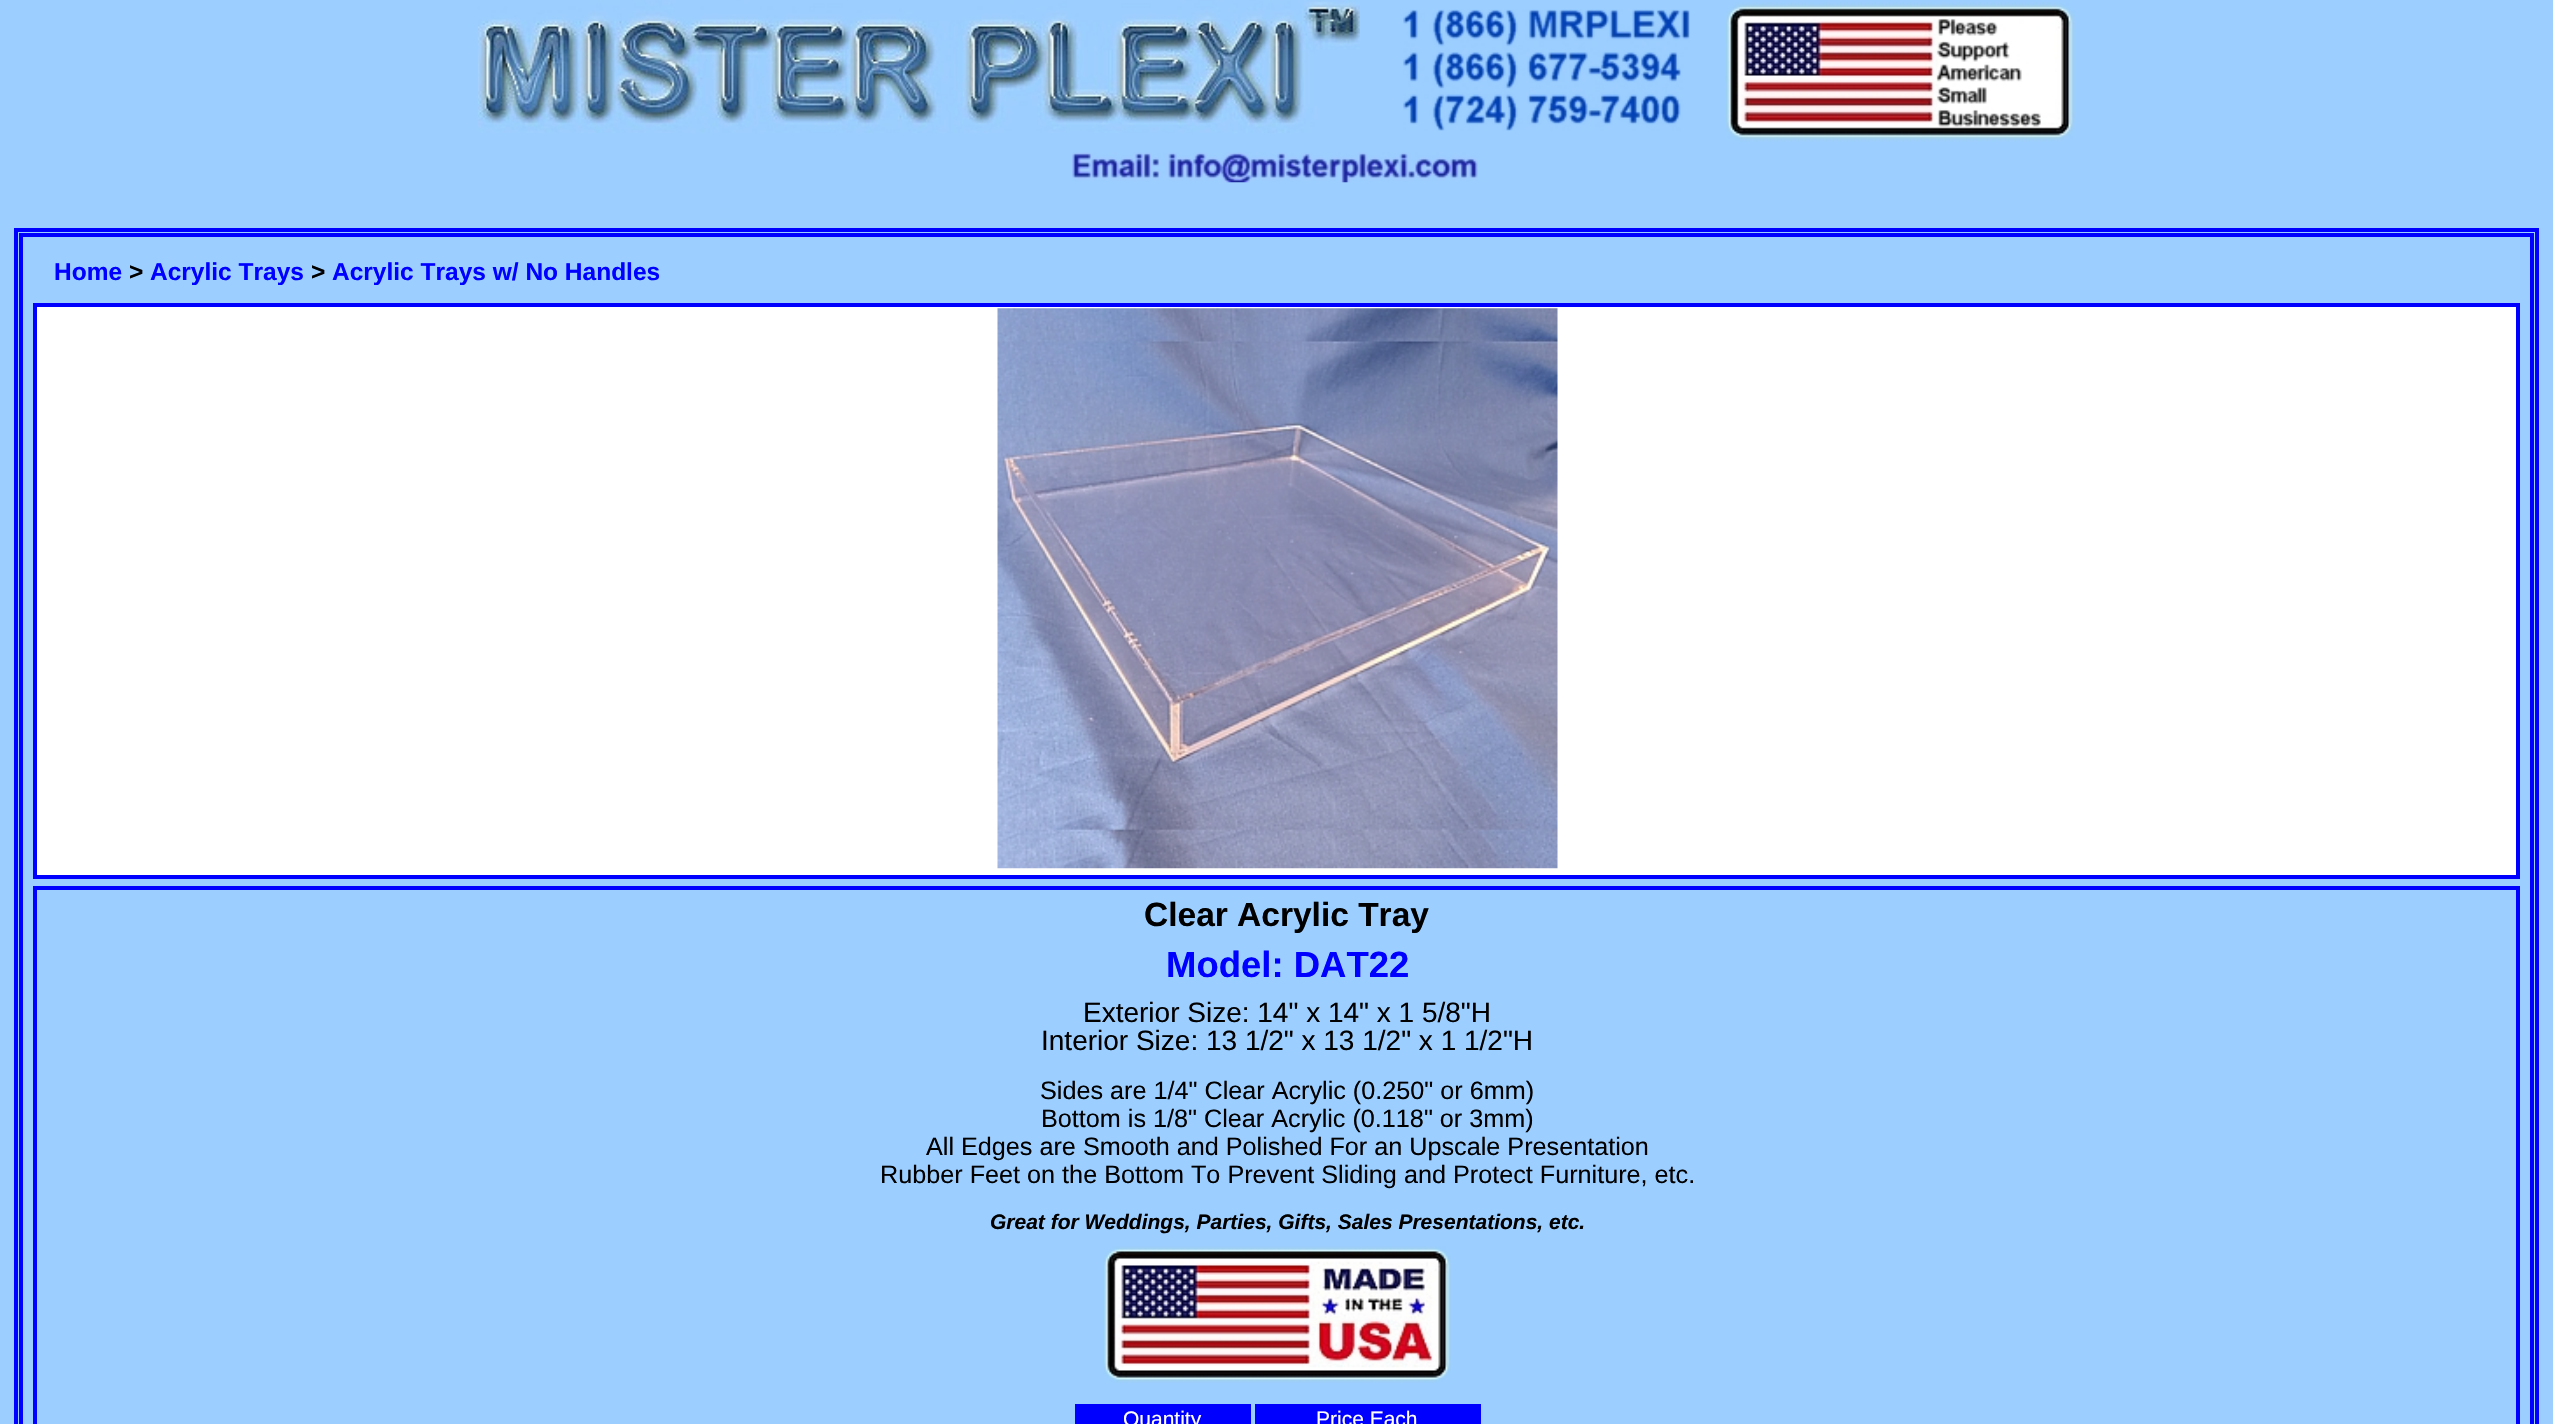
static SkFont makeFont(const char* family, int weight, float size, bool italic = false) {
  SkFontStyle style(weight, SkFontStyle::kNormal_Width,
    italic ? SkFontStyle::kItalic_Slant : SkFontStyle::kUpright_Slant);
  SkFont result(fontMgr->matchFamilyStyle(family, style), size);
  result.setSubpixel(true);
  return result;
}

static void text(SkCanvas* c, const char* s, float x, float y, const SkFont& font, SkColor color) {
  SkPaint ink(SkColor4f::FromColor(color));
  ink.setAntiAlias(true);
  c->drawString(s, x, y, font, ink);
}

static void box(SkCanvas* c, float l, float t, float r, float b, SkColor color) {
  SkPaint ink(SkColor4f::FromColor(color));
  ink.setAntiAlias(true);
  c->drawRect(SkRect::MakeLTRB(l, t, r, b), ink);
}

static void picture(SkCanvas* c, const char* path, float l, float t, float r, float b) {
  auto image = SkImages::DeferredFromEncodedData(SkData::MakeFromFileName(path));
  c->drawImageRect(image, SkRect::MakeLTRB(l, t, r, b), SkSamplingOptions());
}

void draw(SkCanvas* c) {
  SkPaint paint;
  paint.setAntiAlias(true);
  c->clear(0xff9cceff);
  picture(c, "img_01.png", 478, 0, 1360, 133);
  picture(c, "img_02.png", 1403, 9, 1690, 131);
  picture(c, "img_03.png", 1725, 2, 2075, 142);
  picture(c, "img_04.png", 1072, 152, 1478, 183);
  paint.setStyle(SkPaint::kStroke_Style);
  paint.setStrokeWidth(4);
  paint.setColor(0xff0000ff);
  c->drawRect(SkRect::MakeLTRB(16, 230, 2537, 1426), paint);
  c->drawRect(SkRect::MakeLTRB(21, 235, 2532, 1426), paint);
  SkFont face1 = makeFont("Liberation Sans", 700, 24.5f);
  text(c, "Home", 54, 280, face1, 0xff0000ff);
  text(c, ">", 129, 280, face1, 0xff000000);
  text(c, "Acrylic Trays", 150, 280, face1, 0xff0000ff);
  text(c, ">", 311, 280, face1, 0xff000000);
  text(c, "Acrylic Trays w/ No Handles", 332, 280, face1, 0xff0000ff);
  paint.setStyle(SkPaint::kFill_Style);
  paint.setColor(0xffffffff);
  c->drawRect(SkRect::MakeLTRB(35, 305, 2518, 877), paint);
  paint.setStyle(SkPaint::kStroke_Style);
  paint.setColor(0xff0000ff);
  c->drawRect(SkRect::MakeLTRB(35, 305, 2518, 877), paint);
  picture(c, "img_05.png", 997, 308, 1558, 869);
  c->drawRect(SkRect::MakeLTRB(35, 888, 2518, 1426), paint);
  SkFont face2 = makeFont("Liberation Sans", 700, 33.5f);
  text(c, "Clear Acrylic Tray", 1144, 926, face2, 0xff000000);
  SkFont face3 = makeFont("Liberation Sans", 700, 36.5f);
  text(c, "Model: DAT22", 1166, 977, face3, 0xff0000ff);
  SkFont face4 = makeFont("Liberation Sans", 400, 28);
  text(c, "Exterior Size: 14\" x 14\" x 1 5/8\"H", 1083, 1022, face4, 0xff000000);
  text(c, "Interior Size: 13 1/2\" x 13 1/2\" x 1 1/2\"H", 1041, 1050, face4, 0xff000000);
  SkFont face5 = makeFont("Liberation Sans", 400, 25.2f);
  text(c, "Sides are 1/4\" Clear Acrylic (0.250\" or 6mm)", 1040, 1099, face5, 0xff000000);
  text(c, "Bottom is 1/8\" Clear Acrylic (0.118\" or 3mm)", 1041, 1127, face5, 0xff000000);
  text(c, "All Edges are Smooth and Polished For an Upscale Presentation", 926, 1155, face5, 0xff000000);
  text(c, "Rubber Feet on the Bottom To Prevent Sliding and Protect Furniture, etc.", 880, 1183, face5, 0xff000000);
  SkFont face6 = makeFont("Liberation Sans", 700, 21, true);
  text(c, "Great for Weddings, Parties, Gifts, Sales Presentations, etc.", 990, 1229, face6, 0xff000000);
  picture(c, "img_06.png", 1102, 1246, 1451, 1383);
  box(c, 1075, 1404, 1251, 1424, 0xff0000ff);
  SkFont face7 = makeFont("Liberation Sans", 400, 21);
  text(c, "Quantity", 1123, 1426, face7, 0xffffffff);
  box(c, 1255, 1404, 1481, 1424, 0xff0000ff);
  text(c, "Price Each", 1316, 1426, face7, 0xffffffff);
}
